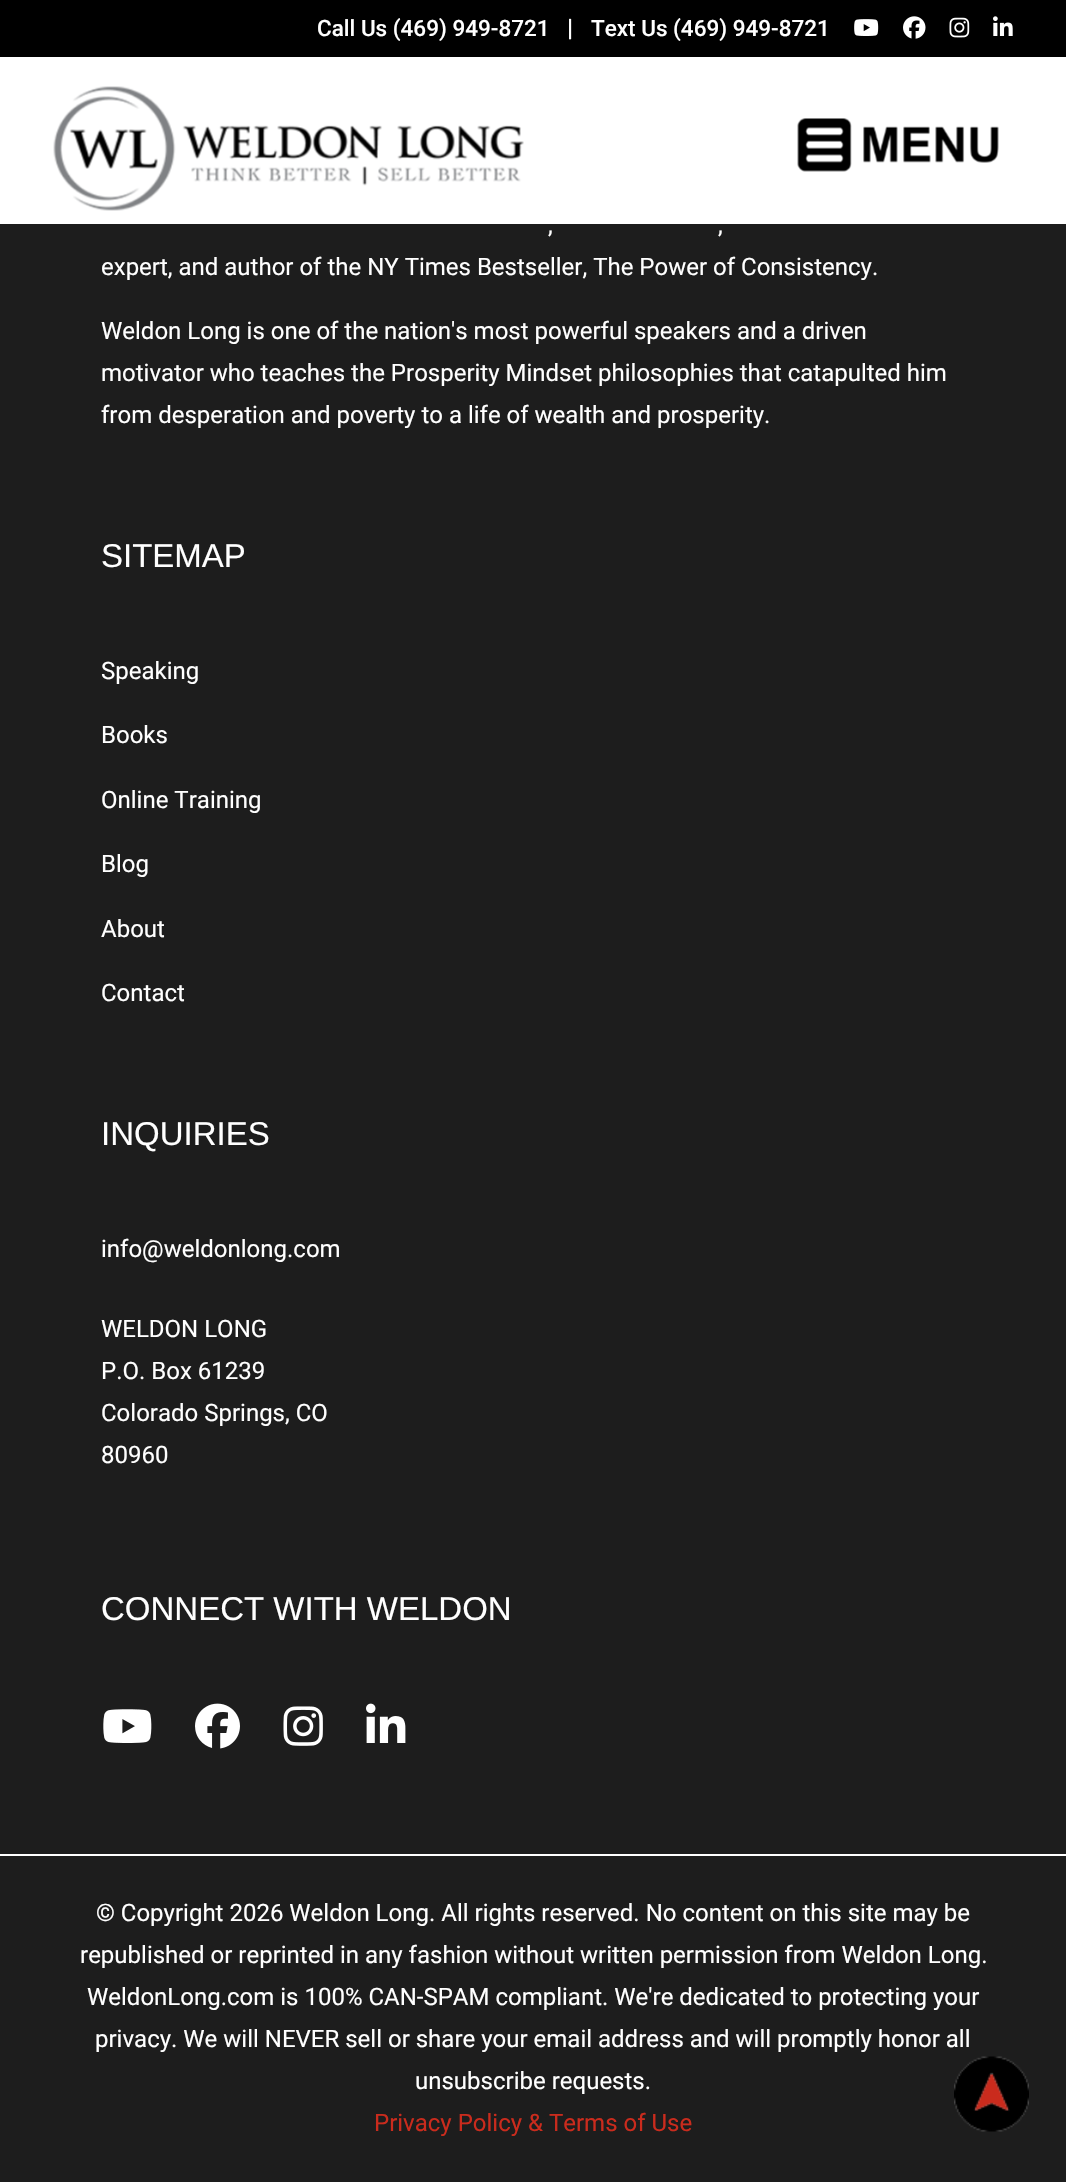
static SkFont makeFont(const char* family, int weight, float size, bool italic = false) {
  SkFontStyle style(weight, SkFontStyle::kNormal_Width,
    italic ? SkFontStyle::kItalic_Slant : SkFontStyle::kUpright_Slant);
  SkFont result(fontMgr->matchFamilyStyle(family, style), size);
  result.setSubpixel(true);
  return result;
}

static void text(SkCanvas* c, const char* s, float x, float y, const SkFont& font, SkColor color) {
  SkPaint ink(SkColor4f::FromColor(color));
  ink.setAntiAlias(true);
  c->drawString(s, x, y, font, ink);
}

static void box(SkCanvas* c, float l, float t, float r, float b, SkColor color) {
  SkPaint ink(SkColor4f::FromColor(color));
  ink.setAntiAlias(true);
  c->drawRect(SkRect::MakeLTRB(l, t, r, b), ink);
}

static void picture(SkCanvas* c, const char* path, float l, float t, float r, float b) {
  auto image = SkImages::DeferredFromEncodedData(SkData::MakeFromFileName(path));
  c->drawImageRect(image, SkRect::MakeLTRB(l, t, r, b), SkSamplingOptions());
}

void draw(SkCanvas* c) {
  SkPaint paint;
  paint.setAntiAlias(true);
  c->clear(0xff1d1d1d);
  box(c, 0, 0, 1066, 57, 0xff000000);
  SkFont face1 = makeFont("Roboto", 500, 22.5f);
  text(c, "Call Us (469) 949-8721", 317, 36, face1, 0xffffffff);
  SkFont face2 = makeFont("Roboto", 700, 24);
  text(c, "|", 567, 36, face2, 0xffffffff);
  text(c, "Text Us (469) 949-8721", 591, 36, face1, 0xffffffff);
  picture(c, "img_01.png", 854, 19, 879, 36);
  picture(c, "img_02.png", 903, 16, 926, 39);
  picture(c, "img_03.png", 949, 17, 970, 38);
  picture(c, "img_04.png", 993, 16, 1013, 36);
  box(c, 0, 57, 1066, 224, 0xffffffff);
  picture(c, "img_05.png", 53, 86, 524, 211);
  picture(c, "img_06.png", 797, 118, 999, 172);
  SkFont face3 = makeFont("Roboto", 400, 24);
  text(c, ",", 548, 233, face3, 0xffffffff);
  text(c, ",", 718, 233, face3, 0xffffffff);
  text(c, "expert, and author of the NY Times Bestseller, The Power of Consistency.", 101, 275, face3, 0xffffffff);
  text(c, "Weldon Long is one of the nation's most powerful speakers and a driven", 101, 339, face3, 0xffffffff);
  text(c, "motivator who teaches the Prosperity Mindset philosophies that catapulted him", 101, 381, face3, 0xffffffff);
  text(c, "from desperation and poverty to a life of wealth and prosperity.", 101, 423, face3, 0xffffffff);
  SkFont face4 = makeFont("Liberation Sans", 400, 33);
  text(c, "SITEMAP", 101, 567, face4, 0xffffffff);
  text(c, "Speaking", 101, 679, face3, 0xffffffff);
  text(c, "Books", 101, 743, face3, 0xffffffff);
  text(c, "Online Training", 101, 808, face3, 0xffffffff);
  text(c, "Blog", 101, 872, face3, 0xffffffff);
  text(c, "About", 101, 937, face3, 0xffffffff);
  text(c, "Contact", 101, 1001, face3, 0xffffffff);
  text(c, "INQUIRIES", 101, 1145, face4, 0xffffffff);
  text(c, "info@weldonlong.com", 101, 1257, face3, 0xffffffff);
  text(c, "WELDON LONG", 101, 1337, face3, 0xffffffff);
  text(c, "P.O. Box 61239", 101, 1379, face3, 0xffffffff);
  text(c, "Colorado Springs, CO", 101, 1421, face3, 0xffffffff);
  text(c, "80960", 101, 1463, face3, 0xffffffff);
  text(c, "CONNECT WITH WELDON", 101, 1620, face4, 0xffffffff);
  picture(c, "img_07.png", 103, 1709, 152, 1743);
  picture(c, "img_08.png", 195, 1703, 240, 1749);
  picture(c, "img_09.png", 283, 1706, 323, 1746);
  picture(c, "img_10.png", 366, 1703, 406, 1743);
  box(c, 0, 1854, 1066, 1856, 0xffffffff);
  text(c, "© Copyright 2026 Weldon Long. All rights reserved. No content on this site may be", 96, 1921, face3, 0xffffffff);
  text(c, "republished or reprinted in any fashion without written permission from Weldon Long.", 80, 1963, face3, 0xffffffff);
  text(c, "WeldonLong.com is 100% CAN-SPAM compliant. We're dedicated to protecting your", 87, 2005, face3, 0xffffffff);
  text(c, "privacy. We will NEVER sell or share your email address and will promptly honor all", 95, 2047, face3, 0xffffffff);
  text(c, "unsubscribe requests.", 415, 2089, face3, 0xffffffff);
  text(c, "Privacy Policy & Terms of Use", 374, 2131, face3, 0xffca2b1d);
  picture(c, "img_11.png", 954, 2056, 1029, 2132);
}
